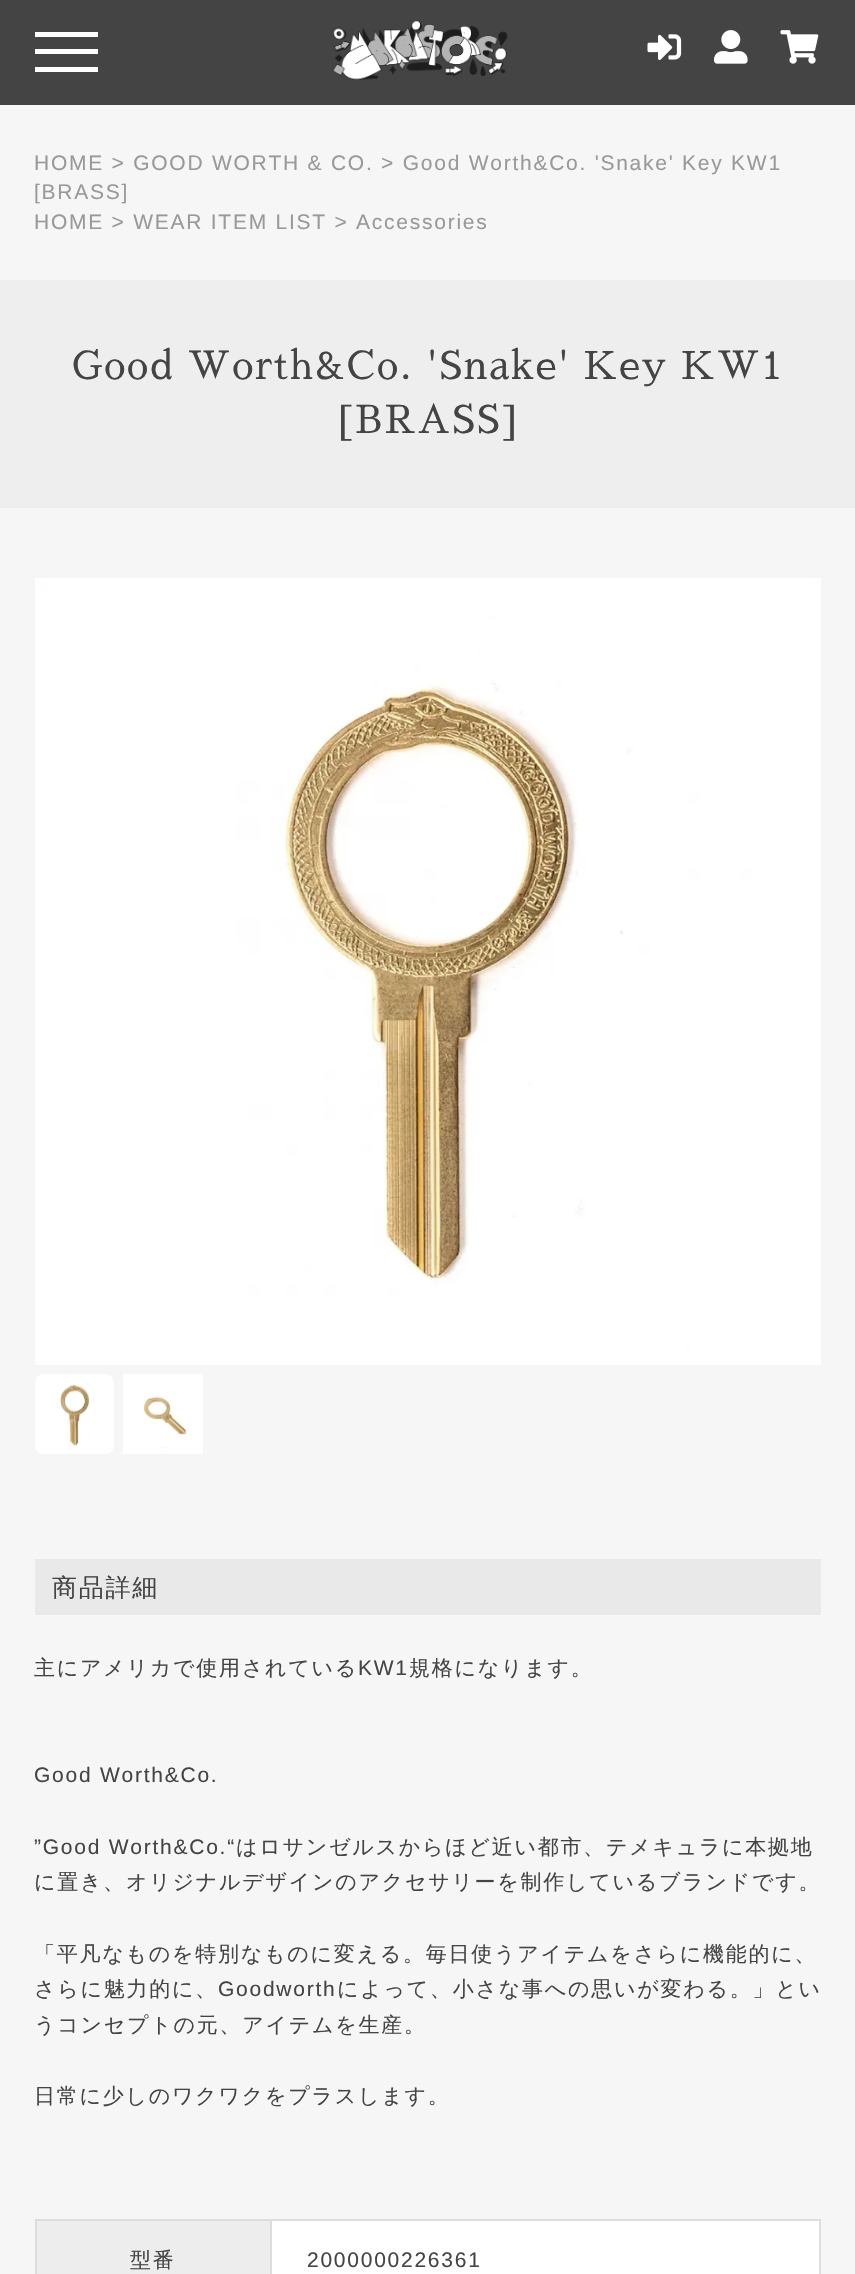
static SkFont makeFont(const char* family, int weight, float size, bool italic = false) {
  SkFontStyle style(weight, SkFontStyle::kNormal_Width,
    italic ? SkFontStyle::kItalic_Slant : SkFontStyle::kUpright_Slant);
  SkFont result(fontMgr->matchFamilyStyle(family, style), size);
  result.setSubpixel(true);
  return result;
}

static void spacedText(SkCanvas* c, const char* s, float x, float y, const SkFont& font, const SkPaint& ink, float letter, float word) {
  std::vector<SkGlyphID> glyphs(font.countText(s, strlen(s), SkTextEncoding::kUTF8));
  std::vector<float> xs(glyphs.size());
  font.textToGlyphs(s, strlen(s), SkTextEncoding::kUTF8, glyphs);
  font.getXPos(glyphs, xs, x);
  float extra = 0;
  for (size_t i = 0; i < glyphs.size(); i++) {
    xs[i] += extra;
    extra += letter + word * (glyphs[i] == font.unicharToGlyph(' '));
  }
  c->drawTextBlob(SkTextBlob::MakeFromPosHGlyphs(glyphs, xs, y, font), 0, 0, ink);
}

static void box(SkCanvas* c, float l, float t, float r, float b, SkColor color) {
  SkPaint ink(SkColor4f::FromColor(color));
  ink.setAntiAlias(true);
  c->drawRect(SkRect::MakeLTRB(l, t, r, b), ink);
}

static void picture(SkCanvas* c, const char* path, float l, float t, float r, float b) {
  auto image = SkImages::DeferredFromEncodedData(SkData::MakeFromFileName(path));
  c->drawImageRect(image, SkRect::MakeLTRB(l, t, r, b), SkSamplingOptions());
}

void draw(SkCanvas* c) {
  SkPaint paint;
  paint.setAntiAlias(true);
  c->clear(0xfff6f6f6);
  box(c, 0, 0, 855, 105, 0xff444444);
  box(c, 35, 32, 98, 37, 0xffffffff);
  box(c, 35, 49, 98, 54, 0xffffffff);
  box(c, 35, 67, 98, 72, 0xffffffff);
  picture(c, "img_01.png", 332, 20, 508, 80);
  picture(c, "img_02.png", 647, 34, 682, 60);
  picture(c, "img_03.png", 714, 30, 748, 64);
  picture(c, "img_04.png", 780, 30, 819, 64);
  SkFont face1 = makeFont("Liberation Sans", 400, 21);
  paint.setColor(0xff999999);
  spacedText(c, "HOME > GOOD WORTH & CO. > Good Worth&Co. 'Snake' Key KW1", 34, 170, face1, paint, 1.75f, 0);
  spacedText(c, "[BRASS]", 34, 199, face1, paint, 1.75f, 0);
  spacedText(c, "HOME > WEAR ITEM LIST > Accessories", 34, 229, face1, paint, 1.75f, 0);
  box(c, 0, 280, 855, 508, 0xffeeeeee);
  SkFont face2 = makeFont("Sawarabi Mincho", 400, 38.5f);
  paint.setColor(0xff444444);
  spacedText(c, "Good Worth&Co. 'Snake' Key KW1", 72, 379, face2, paint, 1.75f, 0);
  spacedText(c, "[BRASS]", 338, 433, face2, paint, 1.75f, 0);
  picture(c, "img_05.png", 35, 578, 821, 1365);
  picture(c, "img_06.png", 35, 1374, 114, 1454);
  picture(c, "img_07.png", 123, 1374, 203, 1454);
  box(c, 35, 1559, 821, 1615, 0xffe9e9e9);
  SkFont face3 = makeFont("WenQuanYi Zen Hei", 500, 25);
  spacedText(c, "商品詳細", 52, 1596, face3, paint, 1.75f, 0);
  SkFont face4 = makeFont("WenQuanYi Zen Hei", 500, 21);
  spacedText(c, "主にアメリカで使用されている", 34, 1675, face4, paint, 1.75f, 0);
  spacedText(c, "KW1", 358, 1675, face1, paint, 1.75f, 0);
  spacedText(c, "規格になります。", 409, 1675, face4, paint, 1.75f, 0);
  spacedText(c, "Good Worth&Co.", 34, 1782, face1, paint, 1.75f, 0);
  spacedText(c, "”Good Worth&Co.“", 34, 1854, face1, paint, 1.75f, 0);
  spacedText(c, "はロサンゼルスからほど近い都市、テメキュラに本拠地", 236, 1854, face4, paint, 1.75f, 0);
  spacedText(c, "に置き、オリジナルデザインのアクセサリーを制作しているブランドです。", 34, 1889, face4, paint, 1.75f, 0);
  spacedText(c, "「平凡なものを特別なものに変える。毎日使うアイテムをさらに機能的に、", 34, 1961, face4, paint, 1.75f, 0);
  spacedText(c, "さらに魅力的に、", 34, 1996, face4, paint, 1.75f, 0);
  spacedText(c, "Goodworth", 218, 1996, face1, paint, 1.75f, 0);
  spacedText(c, "によって、小さな事への思いが変わる。」とい", 337, 1996, face4, paint, 1.75f, 0);
  spacedText(c, "うコンセプトの元、アイテムを生産。", 34, 2032, face4, paint, 1.75f, 0);
  spacedText(c, "日常に少しのワクワクをプラスします。", 34, 2103, face4, paint, 1.75f, 0);
  box(c, 37, 2221, 270, 2274, 0xffededed);
  box(c, 270, 2219, 821, 2221, 0xffdddddd);
  box(c, 270, 2219, 272, 2274, 0xffdddddd);
  box(c, 35, 2219, 271, 2221, 0xffdddddd);
  box(c, 35, 2219, 37, 2274, 0xffdddddd);
  spacedText(c, "型番", 130, 2267, face4, paint, 1.75f, 0);
  box(c, 272, 2221, 819, 2274, 0xffffffff);
  box(c, 819, 2219, 821, 2274, 0xffdddddd);
  spacedText(c, "2000000226361", 307, 2267, face1, paint, 1.75f, 0);
}
